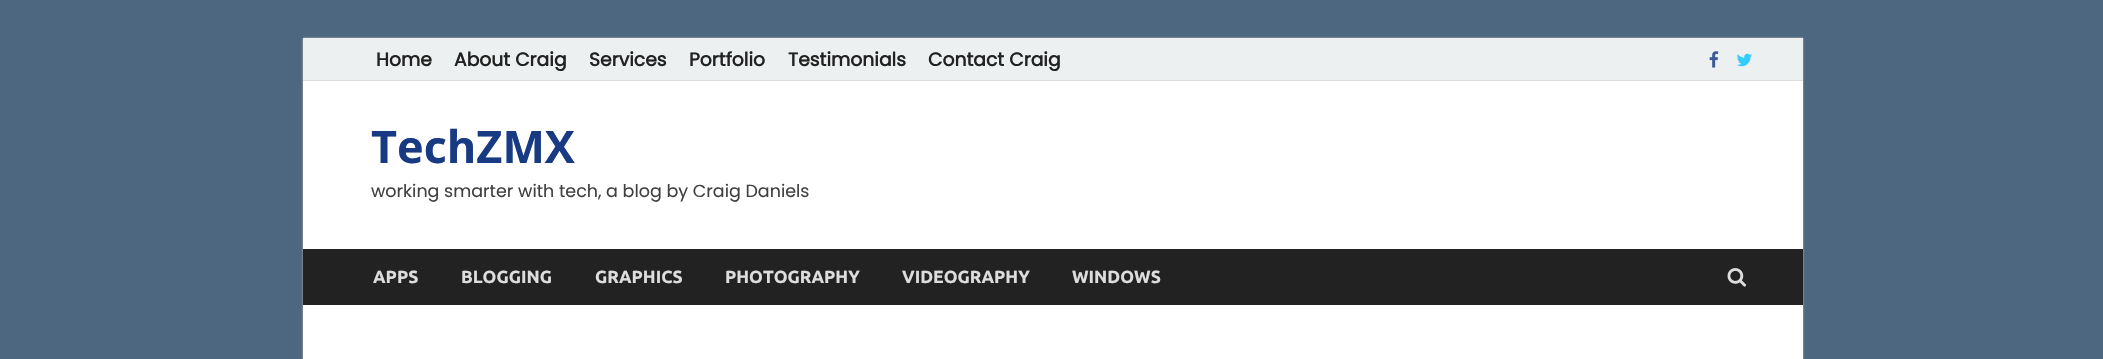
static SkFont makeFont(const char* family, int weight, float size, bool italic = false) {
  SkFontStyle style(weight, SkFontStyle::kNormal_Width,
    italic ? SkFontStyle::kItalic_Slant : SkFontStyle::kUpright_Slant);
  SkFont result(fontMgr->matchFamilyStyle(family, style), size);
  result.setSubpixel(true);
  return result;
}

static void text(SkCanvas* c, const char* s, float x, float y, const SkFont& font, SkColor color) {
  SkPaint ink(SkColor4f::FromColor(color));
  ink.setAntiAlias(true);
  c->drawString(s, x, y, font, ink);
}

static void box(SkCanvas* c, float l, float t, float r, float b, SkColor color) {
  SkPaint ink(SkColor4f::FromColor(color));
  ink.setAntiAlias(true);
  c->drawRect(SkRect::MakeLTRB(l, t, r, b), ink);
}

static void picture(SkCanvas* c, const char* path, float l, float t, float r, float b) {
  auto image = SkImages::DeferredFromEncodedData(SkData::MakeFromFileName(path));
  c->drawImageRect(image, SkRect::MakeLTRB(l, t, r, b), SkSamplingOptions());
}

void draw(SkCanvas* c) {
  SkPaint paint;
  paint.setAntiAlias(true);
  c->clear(0xff4c677f);
  paint.setColor(0xffbbbbbb);
  paint.setMaskFilter(SkMaskFilter::MakeBlur(kNormal_SkBlurStyle, 1));
  c->drawRect(SkRect::MakeLTRB(303, 38, 1803, 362), paint);
  paint.setMaskFilter(nullptr);
  box(c, 303, 81, 1803, 359, 0xffffffff);
  box(c, 303, 38, 1803, 80, 0xffecf0f1);
  box(c, 303, 80, 1803, 81, 0xffdddddd);
  SkFont face1 = makeFont("Poppins", 700, 18.75f);
  text(c, "Home", 376, 66, face1, 0xff222222);
  text(c, "About Craig", 454, 66, face1, 0xff222222);
  text(c, "Services", 589, 66, face1, 0xff222222);
  text(c, "Portfolio", 689, 66, face1, 0xff222222);
  text(c, "Testimonials", 788, 66, face1, 0xff222222);
  text(c, "Contact Craig", 928, 66, face1, 0xff222222);
  picture(c, "img_01.png", 1709, 51, 1719, 68);
  picture(c, "img_02.png", 1737, 53, 1752, 67);
  SkFont face2 = makeFont("Open Sans", 700, 45);
  text(c, "TechZMX", 371, 163, face2, 0xff173a82);
  SkFont face3 = makeFont("Poppins", 400, 17.5f);
  text(c, "working smarter with tech, a blog by Craig Daniels", 371, 197, face3, 0xff404040);
  box(c, 303, 249, 1803, 305, 0xff222222);
  SkFont face4 = makeFont("Ubuntu", 700, 17.5f);
  text(c, "APPS", 373, 283, face4, 0xffdddddd);
  text(c, "BLOGGING", 461, 283, face4, 0xffdddddd);
  text(c, "GRAPHICS", 595, 283, face4, 0xffdddddd);
  text(c, "PHOTOGRAPHY", 725, 283, face4, 0xffdddddd);
  text(c, "VIDEOGRAPHY", 902, 283, face4, 0xffdddddd);
  text(c, "WINDOWS", 1072, 283, face4, 0xffdddddd);
  picture(c, "img_03.png", 1727, 268, 1747, 287);
}
